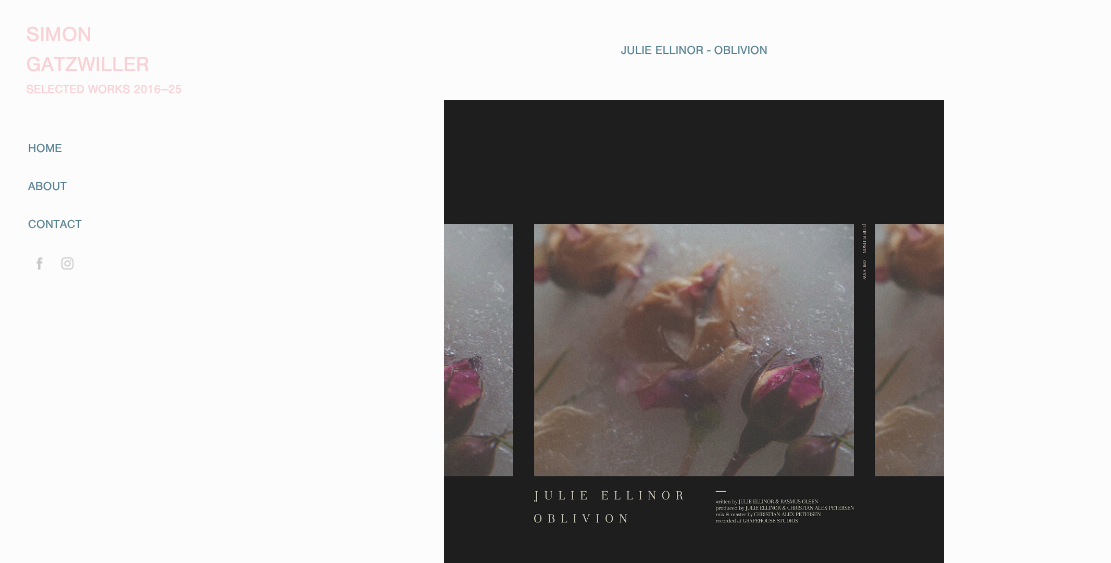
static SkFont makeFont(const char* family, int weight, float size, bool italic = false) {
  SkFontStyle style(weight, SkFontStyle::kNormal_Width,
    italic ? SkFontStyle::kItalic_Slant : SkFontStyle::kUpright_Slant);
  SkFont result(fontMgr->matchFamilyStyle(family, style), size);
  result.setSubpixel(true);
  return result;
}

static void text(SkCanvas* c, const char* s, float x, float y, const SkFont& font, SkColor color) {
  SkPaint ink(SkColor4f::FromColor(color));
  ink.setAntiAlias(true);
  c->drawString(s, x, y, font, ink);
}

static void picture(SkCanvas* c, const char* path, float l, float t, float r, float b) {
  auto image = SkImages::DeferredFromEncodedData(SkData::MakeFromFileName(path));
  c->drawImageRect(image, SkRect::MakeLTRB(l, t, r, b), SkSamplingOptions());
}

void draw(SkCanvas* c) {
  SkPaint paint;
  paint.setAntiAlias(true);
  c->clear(0xfffcfcfc);
  SkFont face1 = makeFont("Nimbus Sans", 400, 21);
  text(c, "SIMON", 26, 41, face1, 0xfffad0d4);
  text(c, "GATZWILLER", 26, 71, face1, 0xfffad0d4);
  SkFont face2 = makeFont("Nimbus Sans", 400, 12);
  text(c, "SELECTED WORKS 2016—25", 26, 93, face2, 0xfffad0d4);
  text(c, "HOME", 28, 152, face2, 0xff568191);
  text(c, "ABOUT", 28, 190, face2, 0xff568191);
  text(c, "CONTACT", 28, 228, face2, 0xff568191);
  picture(c, "img_01.png", 36, 257, 43, 270);
  picture(c, "img_02.png", 61, 257, 74, 270);
  text(c, "JULIE ELLINOR - OBLIVION", 621, 54, face2, 0xff568191);
  picture(c, "img_03.png", 444, 100, 944, 563);
}
